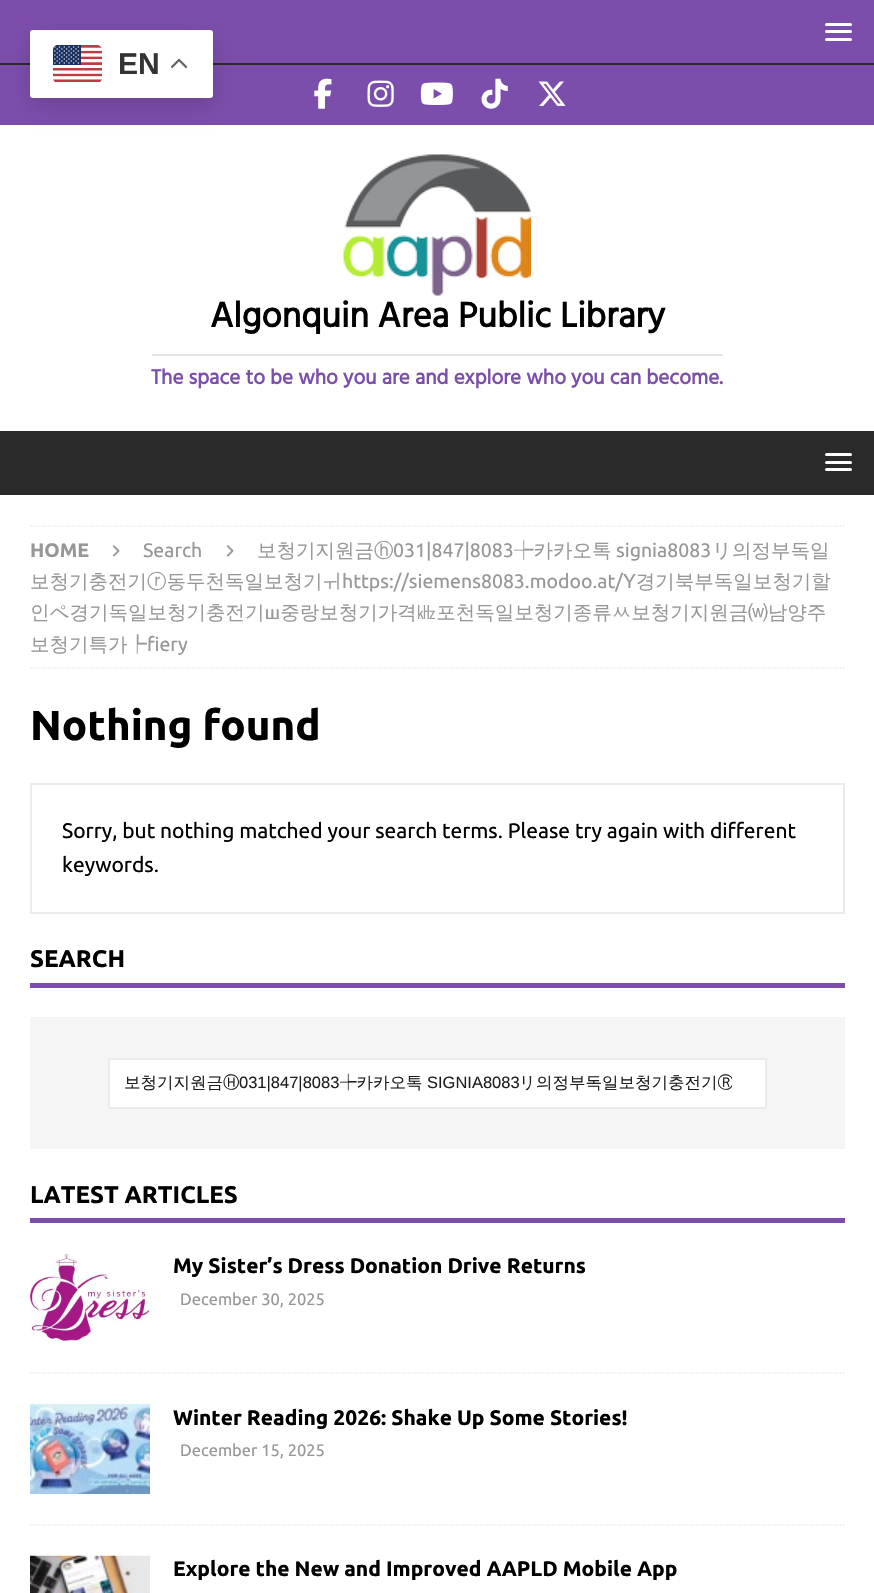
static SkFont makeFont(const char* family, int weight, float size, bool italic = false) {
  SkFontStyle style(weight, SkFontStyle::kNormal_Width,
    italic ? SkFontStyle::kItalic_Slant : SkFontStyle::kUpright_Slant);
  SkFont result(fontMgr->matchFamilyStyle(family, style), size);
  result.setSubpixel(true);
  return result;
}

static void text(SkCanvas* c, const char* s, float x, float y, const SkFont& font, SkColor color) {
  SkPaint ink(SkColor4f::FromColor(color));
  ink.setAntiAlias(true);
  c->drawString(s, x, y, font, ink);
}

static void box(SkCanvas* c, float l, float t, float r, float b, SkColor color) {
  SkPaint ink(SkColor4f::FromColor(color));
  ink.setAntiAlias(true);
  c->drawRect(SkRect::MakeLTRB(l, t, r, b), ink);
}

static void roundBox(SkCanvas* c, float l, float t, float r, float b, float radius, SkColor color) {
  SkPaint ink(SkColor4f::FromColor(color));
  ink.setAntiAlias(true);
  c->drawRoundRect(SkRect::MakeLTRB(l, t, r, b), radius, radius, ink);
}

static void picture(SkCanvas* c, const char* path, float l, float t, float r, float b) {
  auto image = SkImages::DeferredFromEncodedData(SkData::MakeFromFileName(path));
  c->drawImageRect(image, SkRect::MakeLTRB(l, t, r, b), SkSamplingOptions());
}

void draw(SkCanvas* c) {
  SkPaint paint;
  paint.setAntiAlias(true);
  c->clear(0xff7c4eab);
  box(c, 0, 63, 874, 65, 0xff2a2a2a);
  roundBox(c, 825, 23, 852, 26, 1.5f, 0xffffffff);
  roundBox(c, 825, 30, 852, 33, 1.5f, 0xffffffff);
  roundBox(c, 825, 38, 852, 41, 1.5f, 0xffffffff);
  box(c, 0, 125, 874, 431, 0xffffffff);
  paint.setColor(0x26000000);
  paint.setMaskFilter(SkMaskFilter::MakeBlur(kNormal_SkBlurStyle, 11));
  c->drawRoundRect(SkRect::MakeLTRB(30, 38, 213, 105), 3, 3, paint);
  paint.setMaskFilter(nullptr);
  roundBox(c, 30, 30, 213, 98, 3, 0xffffffff);
  picture(c, "img_01.png", 53, 45, 102, 82);
  SkFont face1 = makeFont("Liberation Sans", 700, 30);
  text(c, "EN", 118, 74, face1, 0xff333333);
  picture(c, "img_02.png", 171, 58, 188, 69);
  picture(c, "img_03.png", 314, 78, 332, 109);
  picture(c, "img_04.png", 367, 80, 394, 107);
  picture(c, "img_05.png", 420, 82, 453, 105);
  picture(c, "img_06.png", 481, 78, 508, 109);
  picture(c, "img_07.png", 538, 81, 566, 106);
  picture(c, "img_08.png", 343, 154, 531, 296);
  SkFont face2 = makeFont("Hind Guntur", 700, 36);
  text(c, "Algonquin Area Public Library", 210, 327, face2, 0xff000000);
  box(c, 152, 354, 723, 356, 0xffe5e5e5);
  SkFont face3 = makeFont("Hind Guntur", 700, 21);
  text(c, "The space to be who you are and explore who you can become.", 151, 384, face3, 0xff7c4eab);
  box(c, 0, 431, 874, 495, 0xff2a2a2a);
  roundBox(c, 825, 453, 852, 456, 1.5f, 0xffffffff);
  roundBox(c, 825, 461, 852, 464, 1.5f, 0xffffffff);
  roundBox(c, 825, 468, 852, 471, 1.5f, 0xffffffff);
  box(c, 0, 495, 874, 1593, 0xffffffff);
  paint.setStyle(SkPaint::kStroke_Style);
  paint.setStrokeWidth(1.5f);
  paint.setColor(0xffebebeb);
  paint.setPathEffect(SkDashPathEffect::Make({{1.5f, 1.5f}}, 0));
  c->drawPath(SkPathBuilder().moveTo(30, 526).lineTo(844.5f, 526).detach(), paint);
  paint.setPathEffect(nullptr);
  paint.setPathEffect(SkDashPathEffect::Make({{1.5f, 1.5f}}, 0));
  c->drawPath(SkPathBuilder().moveTo(30, 668).lineTo(844.5f, 668).detach(), paint);
  paint.setPathEffect(nullptr);
  SkFont face4 = makeFont("Ubuntu", 700, 19.5f);
  text(c, "HOME", 30, 557, face4, 0xff979797);
  picture(c, "img_09.png", 112, 545, 120, 557);
  SkFont face5 = makeFont("Ubuntu", 400, 19.5f);
  text(c, "Search", 143, 557, face5, 0xff979797);
  picture(c, "img_09.png", 226, 545, 234, 557);
  SkFont face6 = makeFont("WenQuanYi Zen Hei", 500, 19.5f);
  text(c, "보청기지원금ⓗ", 257, 557, face6, 0xff979797);
  text(c, "031|847|8083", 393, 557, face5, 0xff979797);
  text(c, "┾카카오톡", 514, 557, face6, 0xff979797);
  text(c, "signia8083", 616, 557, face5, 0xff979797);
  text(c, "リ의정부독일", 712, 557, face6, 0xff979797);
  text(c, "보청기충전기ⓡ동두천독일보청기ㅟ", 30, 588, face6, 0xff979797);
  text(c, "https://siemens8083.modoo.at/", 342, 588, face5, 0xff979797);
  text(c, "Υ경기북부독일보청기할", 623, 588, face6, 0xff979797);
  text(c, "인ペ경기독일보청기충전기ш중랑보청기가격㎑포천독일보청기종류ㅆ보청기지원금⒲남양주", 30, 619, face6, 0xff979797);
  text(c, "보청기특가┡", 30, 651, face6, 0xff979797);
  text(c, "fiery", 147, 651, face5, 0xff979797);
  SkFont face7 = makeFont("Ubuntu", 700, 42);
  text(c, "Nothing found", 30, 740, face7, 0xff000000);
  paint.setStrokeWidth(2);
  c->drawRect(SkRect::MakeLTRB(31, 784, 844, 913), paint);
  SkFont face8 = makeFont("Ubuntu", 400, 21);
  text(c, "Sorry, but nothing matched your search terms. Please try again with different", 62, 838, face8, 0xff000000);
  text(c, "keywords.", 62, 872, face8, 0xff000000);
  box(c, 30, 983, 845, 988, 0xff7c4eab);
  SkFont face9 = makeFont("Ubuntu", 700, 24);
  text(c, "SEARCH", 30, 967, face9, 0xff000000);
  box(c, 30, 1017, 845, 1149, 0xfff5f5f5);
  paint.setStyle(SkPaint::kFill_Style);
  paint.setColor(0xffffffff);
  c->drawRect(SkRect::MakeLTRB(109, 1059, 766, 1108), paint);
  paint.setStyle(SkPaint::kStroke_Style);
  paint.setColor(0xffebebeb);
  c->drawRect(SkRect::MakeLTRB(109, 1059, 766, 1108), paint);
  SkFont face10 = makeFont("WenQuanYi Zen Hei", 500, 16.5f);
  text(c, "보청기지원금Ⓗ", 124, 1088, face10, 0xff1f1e1e);
  SkFont face11 = makeFont("Liberation Sans", 400, 16.5f);
  text(c, "031|847|8083", 239, 1088, face11, 0xff1f1e1e);
  text(c, "┾카카오톡", 340, 1088, face10, 0xff1f1e1e);
  text(c, "SIGNIA8083", 427, 1088, face11, 0xff1f1e1e);
  c->save();
  c->clipRect(SkRect::MakeLTRB(125, 1071, 732, 1094));
  text(c, "リ의정부독일보청기충전기Ⓡ", 519, 1088, face10, 0xff1f1e1e);
  c->restore();
  box(c, 30, 1218, 845, 1223, 0xff7c4eab);
  text(c, "LATEST ARTICLES", 30, 1203, face9, 0xff000000);
  paint.setStrokeWidth(1.5f);
  paint.setPathEffect(SkDashPathEffect::Make({{1.5f, 1.5f}}, 0));
  c->drawPath(SkPathBuilder().moveTo(30, 1373).lineTo(844.5f, 1373).detach(), paint);
  paint.setPathEffect(nullptr);
  picture(c, "img_10.png", 30, 1254, 150, 1341);
  SkFont face12 = makeFont("Ubuntu", 700, 21);
  text(c, "My Sister’s Dress Donation Drive Returns", 173, 1273, face12, 0xff000000);
  SkFont face13 = makeFont("Ubuntu", 400, 16.5f);
  text(c, "December 30, 2025", 180, 1305, face13, 0xff979797);
  paint.setPathEffect(SkDashPathEffect::Make({{1.5f, 1.5f}}, 0));
  c->drawPath(SkPathBuilder().moveTo(30, 1525).lineTo(844.5f, 1525).detach(), paint);
  paint.setPathEffect(nullptr);
  picture(c, "img_11.png", 30, 1404, 150, 1494);
  text(c, "Winter Reading 2026: Shake Up Some Stories!", 173, 1425, face12, 0xff000000);
  text(c, "December 15, 2025", 180, 1456, face13, 0xff979797);
  picture(c, "img_12.png", 30, 1555, 150, 1593);
  text(c, "Explore the New and Improved AAPLD Mobile App", 173, 1576, face12, 0xff000000);
}
